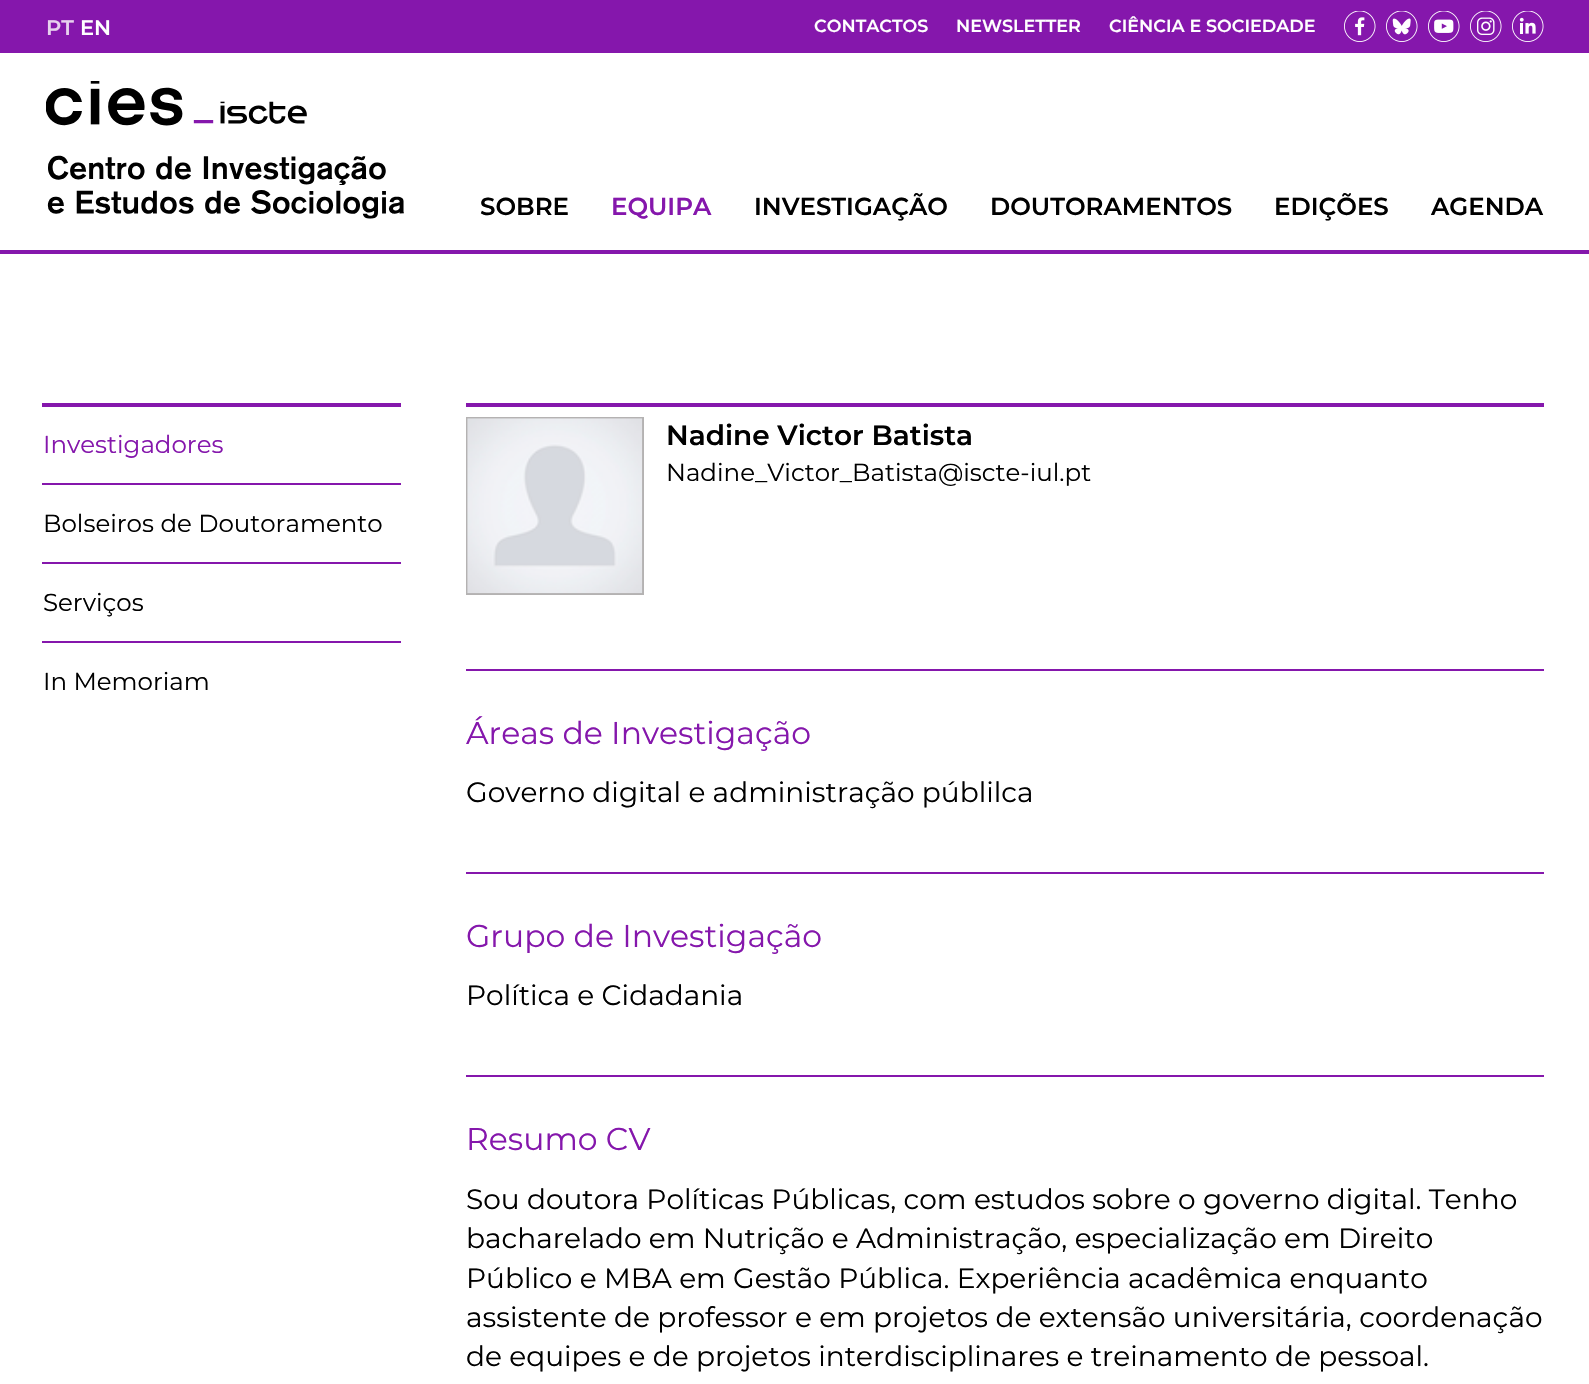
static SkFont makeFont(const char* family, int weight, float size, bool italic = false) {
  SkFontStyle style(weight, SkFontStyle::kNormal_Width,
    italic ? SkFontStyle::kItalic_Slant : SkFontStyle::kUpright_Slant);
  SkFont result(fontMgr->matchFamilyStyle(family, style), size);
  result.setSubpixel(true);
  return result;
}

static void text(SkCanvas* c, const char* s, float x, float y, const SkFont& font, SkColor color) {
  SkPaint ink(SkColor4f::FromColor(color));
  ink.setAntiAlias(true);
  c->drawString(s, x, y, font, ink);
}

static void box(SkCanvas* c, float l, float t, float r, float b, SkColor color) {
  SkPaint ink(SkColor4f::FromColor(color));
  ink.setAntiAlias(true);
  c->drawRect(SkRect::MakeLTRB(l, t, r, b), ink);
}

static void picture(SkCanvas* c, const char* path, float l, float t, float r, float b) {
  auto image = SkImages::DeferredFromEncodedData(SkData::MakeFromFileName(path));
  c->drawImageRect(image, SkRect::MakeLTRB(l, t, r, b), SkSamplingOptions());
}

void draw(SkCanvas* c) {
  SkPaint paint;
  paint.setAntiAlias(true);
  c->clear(0xffffffff);
  box(c, 0, 0, 1589, 53, 0xff8517ac);
  SkFont face1 = makeFont("Montserrat", 600, 21);
  text(c, "PT", 46, 35, face1, 0xffe7d1ee);
  text(c, "EN", 80, 35, face1, 0xffffffff);
  SkFont face2 = makeFont("Montserrat", 600, 17.5f);
  text(c, "CONTACTOS", 814, 32, face2, 0xffffffff);
  text(c, "NEWSLETTER", 956, 32, face2, 0xffffffff);
  text(c, "CIÊNCIA E SOCIEDADE", 1109, 32, face2, 0xffffffff);
  picture(c, "img_01.png", 1344, 11, 1376, 42);
  picture(c, "img_02.png", 1386, 11, 1418, 42);
  picture(c, "img_03.png", 1428, 11, 1460, 42);
  picture(c, "img_04.png", 1470, 11, 1502, 42);
  picture(c, "img_05.png", 1512, 11, 1544, 42);
  picture(c, "img_06.png", 46, 81, 404, 219);
  SkFont face3 = makeFont("Montserrat", 600, 24.5f);
  text(c, "SOBRE", 480, 215, face3, 0xff000000);
  text(c, "EQUIPA", 611, 215, face3, 0xff8517ac);
  text(c, "INVESTIGAÇÃO", 754, 215, face3, 0xff000000);
  text(c, "DOUTORAMENTOS", 990, 215, face3, 0xff000000);
  text(c, "EDIÇÕES", 1274, 215, face3, 0xff000000);
  text(c, "AGENDA", 1431, 215, face3, 0xff000000);
  box(c, 0, 250, 1589, 254, 0xff8517ac);
  box(c, 42, 403, 401, 407, 0xff8517ac);
  SkFont face4 = makeFont("Montserrat", 400, 24.5f);
  text(c, "Investigadores", 43, 453, face4, 0xff8517ac);
  box(c, 42, 483, 401, 485, 0xff8517ac);
  text(c, "Bolseiros de Doutoramento", 43, 532, face4, 0xff000000);
  box(c, 42, 562, 401, 564, 0xff8517ac);
  text(c, "Serviços", 43, 611, face4, 0xff000000);
  box(c, 42, 641, 401, 643, 0xff8517ac);
  text(c, "In Memoriam", 43, 690, face4, 0xff000000);
  box(c, 466, 403, 1544, 407, 0xff8517ac);
  paint.setStyle(SkPaint::kStroke_Style);
  paint.setStrokeWidth(2);
  paint.setColor(0xffb4b2b2);
  c->drawRect(SkRect::MakeLTRB(467, 418, 643, 594), paint);
  picture(c, "img_07.png", 467, 418, 643, 594);
  SkFont face5 = makeFont("Montserrat", 600, 28);
  text(c, "Nadine Victor Batista", 666, 445, face5, 0xff000000);
  text(c, "Nadine_Victor_Batista@iscte-iul.pt", 666, 481, face4, 0xff000000);
  box(c, 466, 669, 1544, 671, 0xff8517ac);
  SkFont face6 = makeFont("Montserrat", 400, 31.5f);
  text(c, "Áreas de Investigação", 466, 744, face6, 0xff8517ac);
  SkFont face7 = makeFont("Montserrat", 400, 28);
  text(c, "Governo digital e administração públilca", 466, 802, face7, 0xff000000);
  box(c, 466, 872, 1544, 874, 0xff8517ac);
  text(c, "Grupo de Investigação", 466, 947, face6, 0xff8517ac);
  text(c, "Política e Cidadania", 466, 1005, face7, 0xff000000);
  box(c, 466, 1075, 1544, 1077, 0xff8517ac);
  text(c, "Resumo CV", 466, 1150, face6, 0xff8517ac);
  text(c, "Sou doutora Políticas Públicas, com estudos sobre o governo digital. Tenho", 466, 1209, face7, 0xff000000);
  text(c, "bacharelado em Nutrição e Administração, especialização em Direito", 466, 1248, face7, 0xff000000);
  text(c, "Público e MBA em Gestão Pública. Experiência acadêmica enquanto", 466, 1288, face7, 0xff000000);
  text(c, "assistente de professor e em projetos de extensão universitária, coordenação", 466, 1327, face7, 0xff000000);
  text(c, "de equipes e de projetos interdisciplinares e treinamento de pessoal.", 466, 1366, face7, 0xff000000);
}
